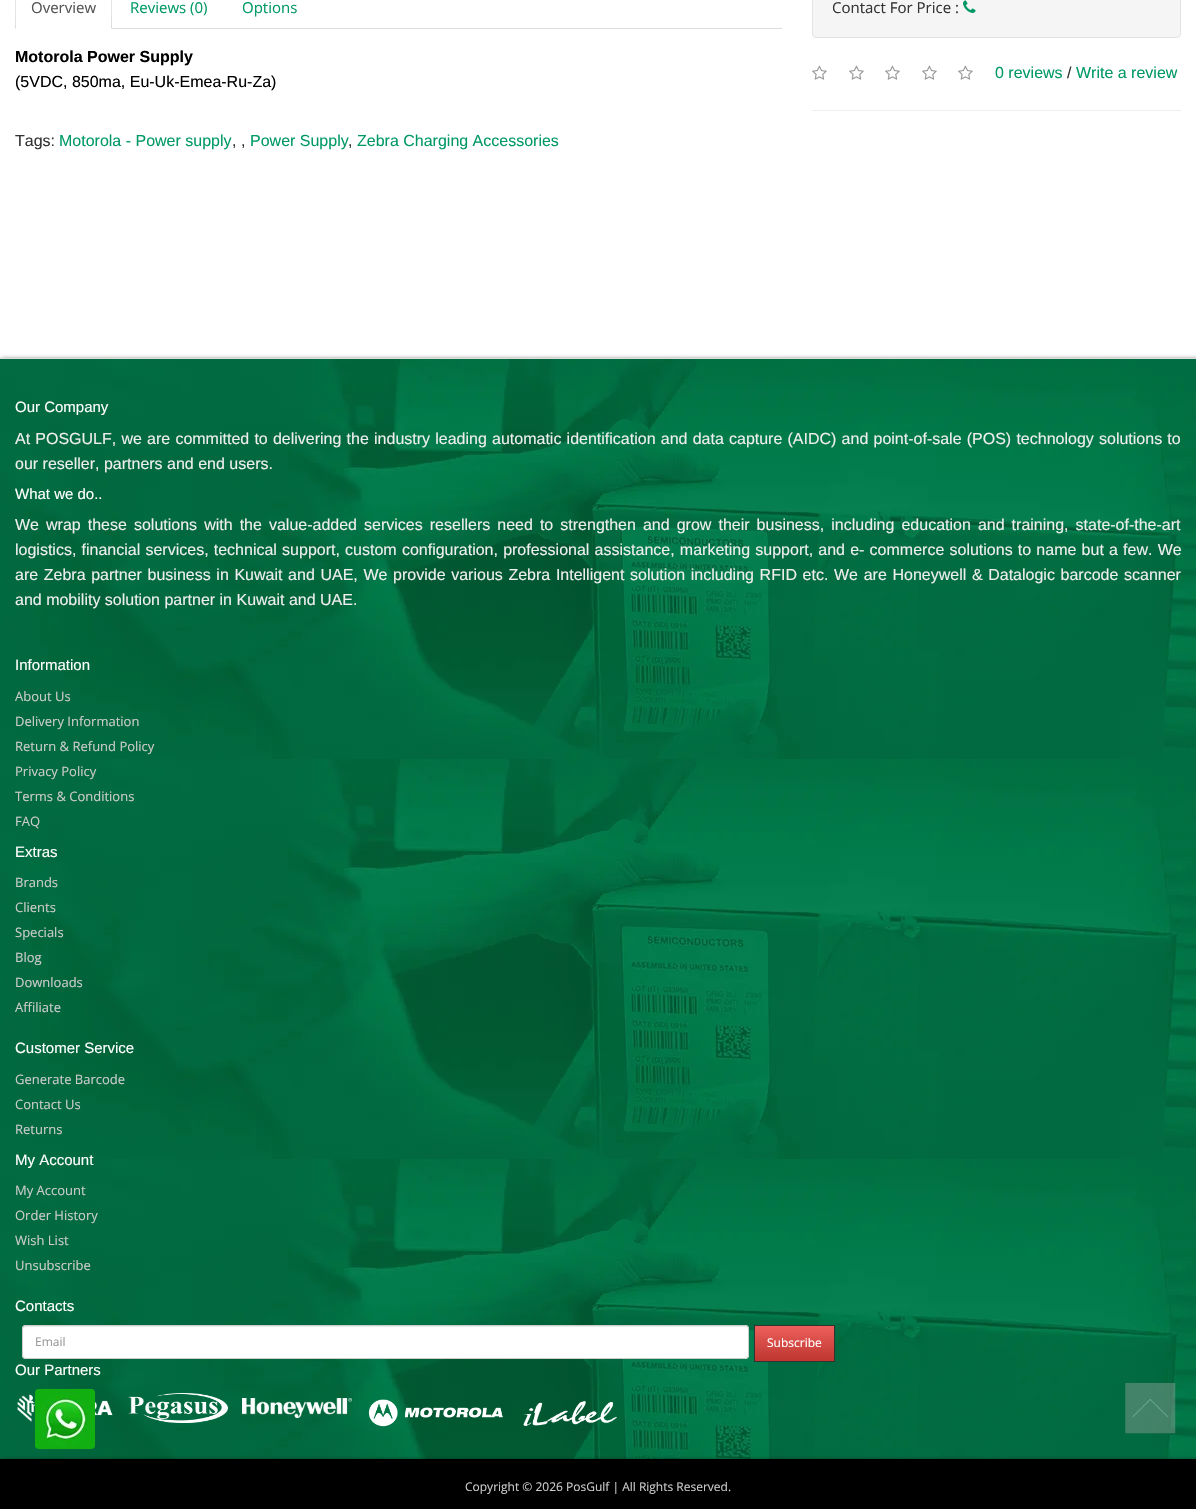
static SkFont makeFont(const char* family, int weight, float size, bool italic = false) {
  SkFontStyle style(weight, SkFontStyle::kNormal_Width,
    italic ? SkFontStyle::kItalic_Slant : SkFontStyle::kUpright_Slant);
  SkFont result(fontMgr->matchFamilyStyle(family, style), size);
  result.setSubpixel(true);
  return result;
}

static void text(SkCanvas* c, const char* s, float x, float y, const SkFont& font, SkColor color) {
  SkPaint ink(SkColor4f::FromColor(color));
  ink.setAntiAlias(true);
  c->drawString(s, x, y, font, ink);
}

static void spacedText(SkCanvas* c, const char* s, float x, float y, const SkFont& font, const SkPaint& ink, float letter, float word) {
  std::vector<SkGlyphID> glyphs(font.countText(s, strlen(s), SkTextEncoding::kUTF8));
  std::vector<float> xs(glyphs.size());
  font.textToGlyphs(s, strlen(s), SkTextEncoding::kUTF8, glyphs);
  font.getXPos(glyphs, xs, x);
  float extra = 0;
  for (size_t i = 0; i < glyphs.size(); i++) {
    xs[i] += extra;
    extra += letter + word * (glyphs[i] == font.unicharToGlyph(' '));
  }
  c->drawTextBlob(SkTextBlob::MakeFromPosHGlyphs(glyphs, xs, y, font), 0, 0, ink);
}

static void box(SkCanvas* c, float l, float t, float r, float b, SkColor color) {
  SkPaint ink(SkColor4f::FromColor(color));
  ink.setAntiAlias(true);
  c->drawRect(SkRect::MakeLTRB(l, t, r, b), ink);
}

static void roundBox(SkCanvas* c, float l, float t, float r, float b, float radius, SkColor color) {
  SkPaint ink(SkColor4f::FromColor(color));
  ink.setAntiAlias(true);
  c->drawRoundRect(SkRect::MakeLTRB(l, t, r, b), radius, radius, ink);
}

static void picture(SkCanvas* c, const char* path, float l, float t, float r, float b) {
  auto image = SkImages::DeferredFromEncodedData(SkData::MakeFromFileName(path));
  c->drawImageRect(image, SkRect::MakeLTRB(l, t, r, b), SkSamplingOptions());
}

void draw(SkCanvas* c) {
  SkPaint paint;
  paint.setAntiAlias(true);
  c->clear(0xffffffff);
  box(c, 112, 28, 782, 29, 0xffdddddd);
  paint.setColor(0xffdddddd);
  c->drawPath(SkPathBuilder().moveTo(112, 29).lineTo(112, -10).cubicTo(112, -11, 112, -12, 111, -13).lineTo(110, -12).cubicTo(112, -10, 111, 23, 111, 28).close().detach(), paint);
  c->drawPath(SkPathBuilder().moveTo(15, 29).lineTo(16, 28).cubicTo(16, 23, 15, -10, 17, -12).lineTo(16, -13).lineTo(15, -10).close().detach(), paint);
  SkFont face1 = makeFont("Open Sans", 400, 15);
  text(c, "Overview", 31, 13, face1, 0xff555555);
  text(c, "Reviews (0)", 130, 13, face1, 0xff009966);
  text(c, "Options", 242, 13, face1, 0xff009966);
  SkFont face2 = makeFont("Liberation Sans", 700, 16);
  text(c, "Motorola Power Supply", 15, 62, face2, 0xff000000);
  SkFont face3 = makeFont("Liberation Sans", 400, 16);
  text(c, "(5VDC, 850ma, Eu-Uk-Emea-Ru-Za)", 15, 87, face3, 0xff000000);
  paint.setColor(0xfff5f5f5);
  c->drawRoundRect(SkRect::MakeLTRB(812.5f, -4.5f, 1180.5f, 37.5f), 3.5f, 3.5f, paint);
  paint.setStyle(SkPaint::kStroke_Style);
  paint.setStrokeWidth(1);
  paint.setColor(0xffe3e3e3);
  c->drawRoundRect(SkRect::MakeLTRB(812.5f, -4.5f, 1180.5f, 37.5f), 3.5f, 3.5f, paint);
  text(c, "Contact For Price :", 832, 13, face1, 0xff333333);
  picture(c, "img_01.png", 963, 0, 976, 13);
  picture(c, "img_02.png", 812, 65, 827, 80);
  picture(c, "img_02.png", 849, 65, 864, 80);
  picture(c, "img_02.png", 885, 65, 900, 80);
  picture(c, "img_02.png", 922, 65, 937, 80);
  picture(c, "img_02.png", 958, 65, 973, 80);
  text(c, "0 reviews", 995, 78, face3, 0xff009966);
  text(c, "/", 1067, 78, face3, 0xff333333);
  text(c, "Write a review", 1076, 78, face3, 0xff009966);
  box(c, 812, 110, 1181, 111, 0xffeeeeee);
  text(c, "Tags:", 15, 146, face3, 0xff333333);
  text(c, "Motorola - Power supply", 59, 146, face3, 0xff009966);
  text(c, ", ,", 232, 146, face3, 0xff333333);
  text(c, "Power Supply", 250, 146, face3, 0xff009966);
  text(c, ",", 348, 146, face3, 0xff333333);
  text(c, "Zebra Charging Accessories", 357, 146, face3, 0xff009966);
  paint.setStyle(SkPaint::kFill_Style);
  paint.setColor(0xff000000);
  paint.setMaskFilter(SkMaskFilter::MakeBlur(kNormal_SkBlurStyle, 2.5f));
  c->drawRect(SkRect::MakeLTRB(1, 360, 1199, 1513), paint);
  paint.setMaskFilter(nullptr);
  picture(c, "img_03.png", 0, 359, 1196, 1459);
  box(c, 0, 358, 1196, 359, 0xffdddddd);
  SkFont face4 = makeFont("Liberation Sans", 400, 15);
  text(c, "Our Company", 15, 412, face4, 0xffffffff);
  paint.setColor(0xffeeeeee);
  spacedText(c, "At POSGULF, we are committed to delivering the industry leading automatic identification and data capture (AIDC) and point-of-sale (POS) technology solutions to", 15, 444, face3, paint, 0, 0.75f);
  text(c, "our reseller, partners and end users.", 15, 469, face3, 0xffeeeeee);
  text(c, "What we do..", 15, 499, face4, 0xffffffff);
  spacedText(c, "We wrap these solutions with the value-added services resellers need to strengthen and grow their business, including education and training, state-of-the-art", 15, 530, face3, paint, 0, 2.6f);
  spacedText(c, "logistics, financial services, technical support, custom configuration, professional assistance, marketing support, and e- commerce solutions to name but a few. We", 15, 555, face3, paint, 0, 0.75f);
  spacedText(c, "are Zebra partner business in Kuwait and UAE, We provide various Zebra Intelligent solution including RFID etc. We are Honeywell & Datalogic barcode scanner", 15, 580, face3, paint, 0, 1.2f);
  text(c, "and mobility solution partner in Kuwait and UAE.", 15, 605, face3, 0xffeeeeee);
  text(c, "Information", 15, 670, face4, 0xffffffff);
  SkFont face5 = makeFont("Open Sans", 400, 13);
  text(c, "About Us", 15, 701, face5, 0xffcccccc);
  text(c, "Delivery Information", 15, 726, face5, 0xffcccccc);
  text(c, "Return & Refund Policy", 15, 751, face5, 0xffcccccc);
  text(c, "Privacy Policy", 15, 776, face5, 0xffcccccc);
  text(c, "Terms & Conditions", 15, 801, face5, 0xffcccccc);
  text(c, "FAQ", 15, 826, face5, 0xffcccccc);
  text(c, "Extras", 15, 857, face4, 0xffffffff);
  text(c, "Brands", 15, 887, face5, 0xffcccccc);
  text(c, "Clients", 15, 912, face5, 0xffcccccc);
  text(c, "Specials", 15, 937, face5, 0xffcccccc);
  text(c, "Blog", 15, 962, face5, 0xffcccccc);
  text(c, "Downloads", 15, 987, face5, 0xffcccccc);
  text(c, "Affiliate", 15, 1012, face5, 0xffcccccc);
  text(c, "Customer Service", 15, 1053, face4, 0xffffffff);
  text(c, "Generate Barcode", 15, 1084, face5, 0xffcccccc);
  text(c, "Contact Us", 15, 1109, face5, 0xffcccccc);
  text(c, "Returns", 15, 1134, face5, 0xffcccccc);
  text(c, "My Account", 15, 1165, face4, 0xffffffff);
  text(c, "My Account", 15, 1195, face5, 0xffcccccc);
  text(c, "Order History", 15, 1220, face5, 0xffcccccc);
  text(c, "Wish List", 15, 1245, face5, 0xffcccccc);
  text(c, "Unsubscribe", 15, 1270, face5, 0xffcccccc);
  text(c, "Contacts", 15, 1311, face4, 0xffffffff);
  roundBox(c, 22, 1325, 749, 1359, 4, 0xffffffff);
  paint.setColor(0xffececec);
  c->drawPath(SkPathBuilder().moveTo(26, 1327).lineTo(745, 1327).cubicTo(747, 1327, 748, 1328, 748, 1330).cubicTo(748, 1328, 747, 1326, 745, 1326).lineTo(26, 1326).cubicTo(24, 1326, 23, 1328, 23, 1330).cubicTo(23, 1328, 24, 1327, 26, 1327).close().detach(), paint);
  paint.setStyle(SkPaint::kStroke_Style);
  paint.setColor(0xffcccccc);
  c->drawRoundRect(SkRect::MakeLTRB(22.5f, 1325.5f, 748.5f, 1358.5f), 3.5f, 3.5f, paint);
  SkFont face6 = makeFont("Open Sans", 400, 12);
  text(c, "Email", 35, 1346, face6, 0xff999999);
  paint.setStyle(SkPaint::kFill_Style);
  {
    const SkColor colors[] = {0xffee5f5b, 0xffbd362f};
    const float stops[] = {0, 1};
    const SkPoint ends[] = {{795, 1326}, {795, 1361}};
    paint.setShader(SkGradientShader::MakeLinear(ends, colors, stops, 2, SkTileMode::kClamp));
    paint.setAlpha(255);
  }
  c->drawRect(SkRect::MakeLTRB(755, 1326, 834, 1361), paint);
  paint.setStyle(SkPaint::kStroke_Style);
  paint.setShader(nullptr);
  paint.setColor(0xff333333);
  c->drawRect(SkRect::MakeLTRB(754.5f, 1325.5f, 834.5f, 1361.5f), paint);
  text(c, "Subscribe", 767, 1347, face6, 0xffffffff);
  text(c, "Our Partners", 15, 1375, face4, 0xffffffff);
  picture(c, "img_04.png", 17, 1394, 113, 1422);
  picture(c, "img_05.png", 128, 1393, 228, 1423);
  picture(c, "img_06.png", 242, 1398, 352, 1418);
  picture(c, "img_07.png", 368, 1399, 503, 1427);
  picture(c, "img_08.png", 523, 1401, 617, 1426);
  roundBox(c, 35, 1389, 95, 1449, 4, 0xff12af11);
  picture(c, "img_09.png", 38, 1391, 93, 1447);
  paint.setStyle(SkPaint::kFill_Style);
  paint.setColor(0xff000000);
  paint.setMaskFilter(SkMaskFilter::MakeBlur(kNormal_SkBlurStyle, 2.5f));
  c->drawRect(SkRect::MakeLTRB(1, 1461, 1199, 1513), paint);
  paint.setMaskFilter(nullptr);
  box(c, 0, 1459, 1196, 1509, 0xff000000);
  text(c, "Copyright © 2026 PosGulf | All Rights Reserved.", 465, 1491, face6, 0xffcccccc);
  picture(c, "img_10.png", 1125, 1383, 1176, 1434);
}
